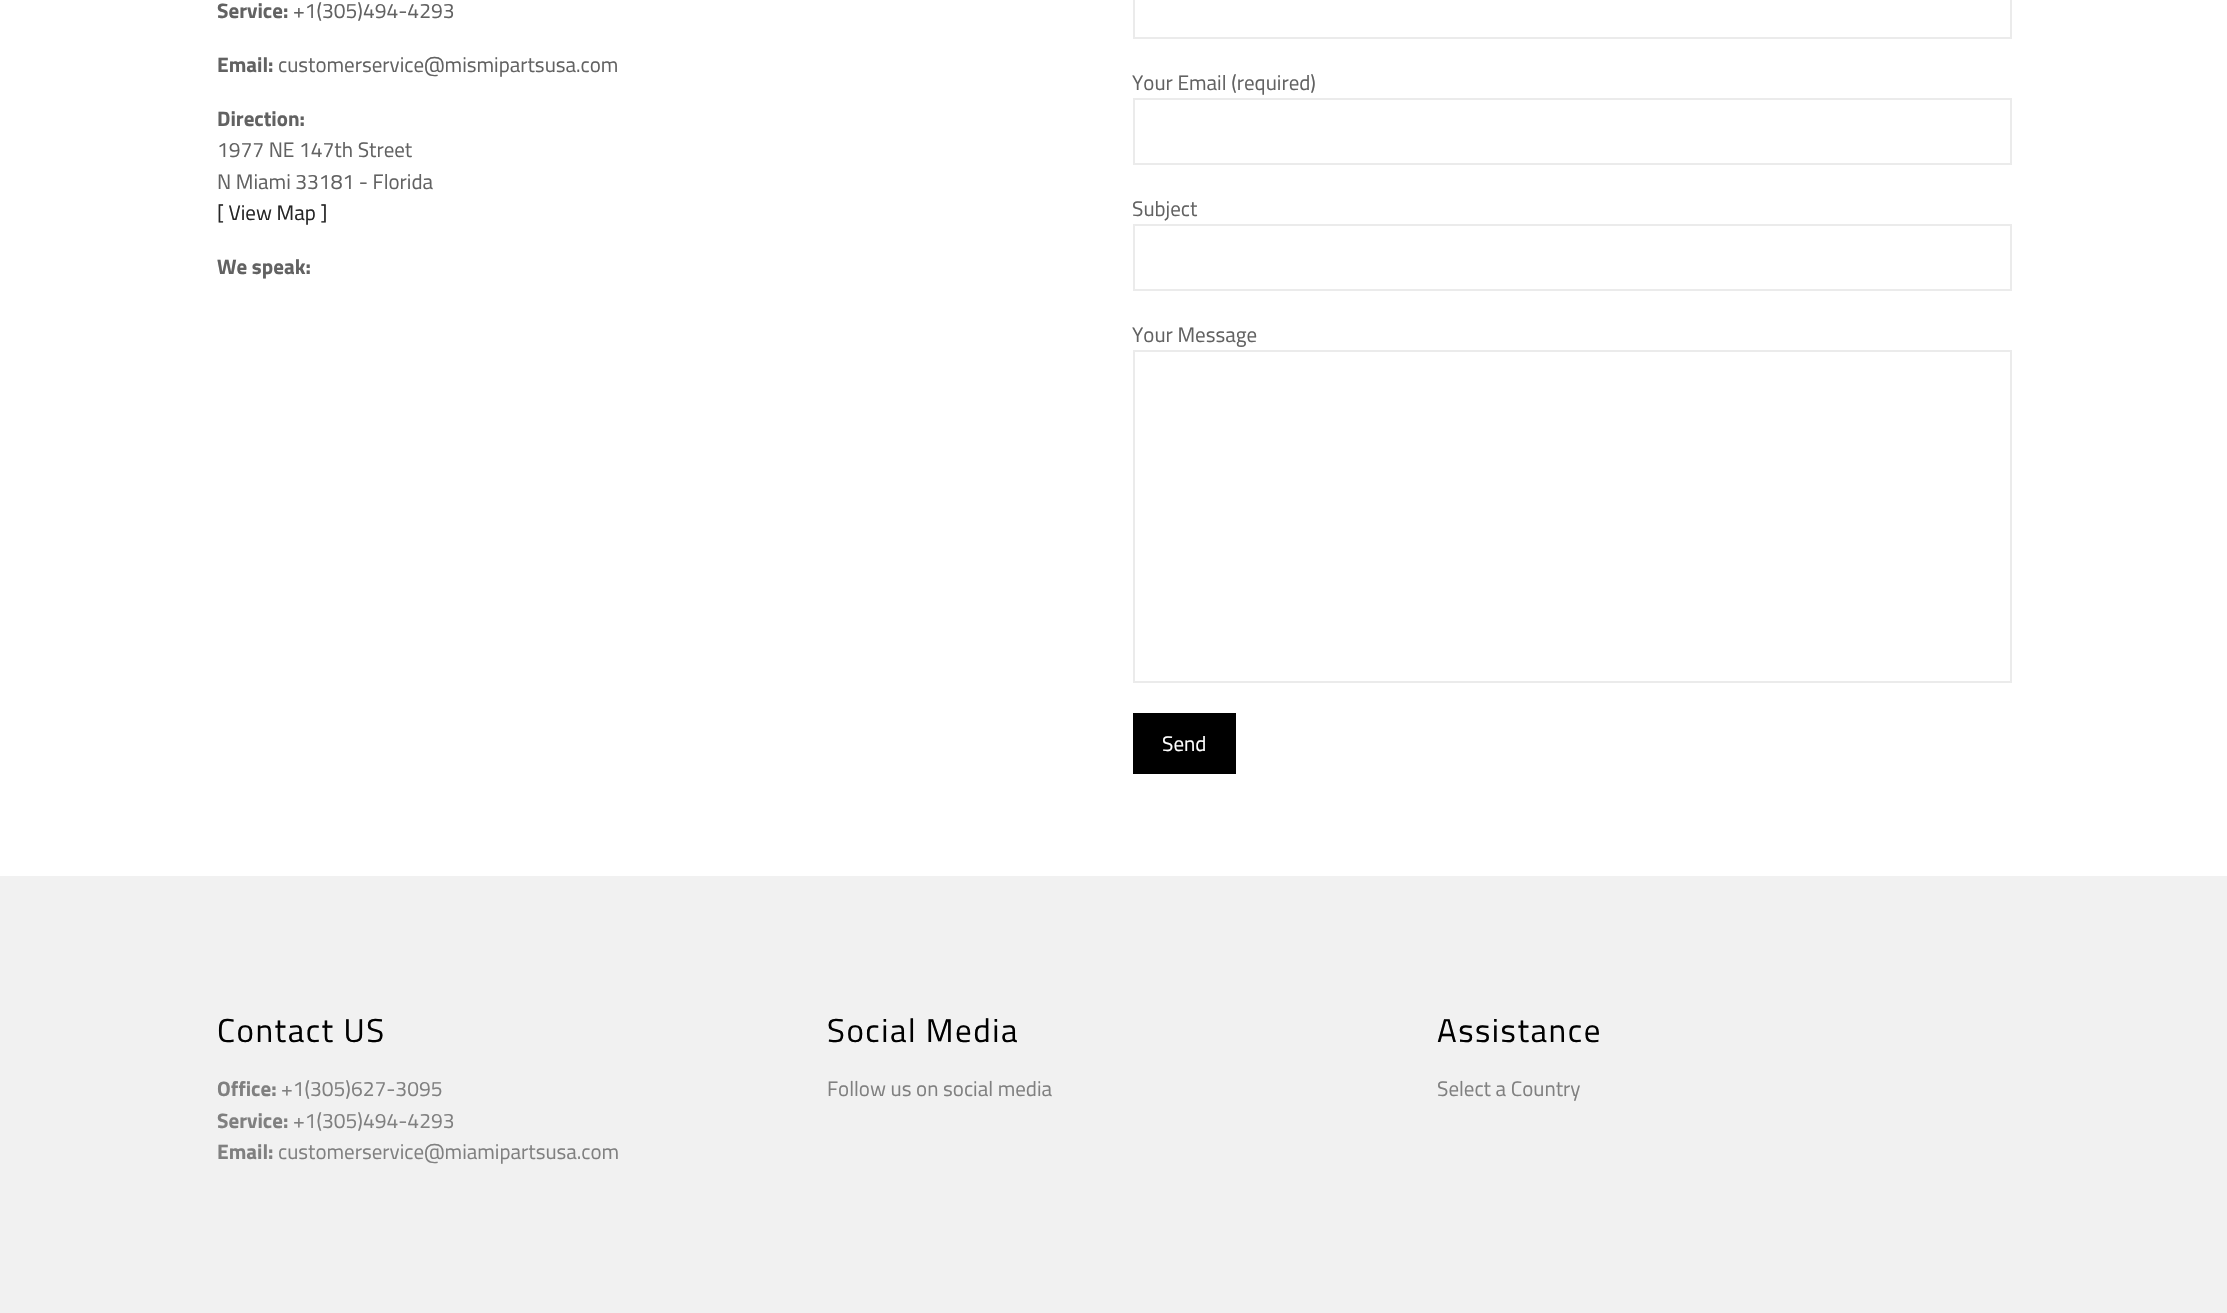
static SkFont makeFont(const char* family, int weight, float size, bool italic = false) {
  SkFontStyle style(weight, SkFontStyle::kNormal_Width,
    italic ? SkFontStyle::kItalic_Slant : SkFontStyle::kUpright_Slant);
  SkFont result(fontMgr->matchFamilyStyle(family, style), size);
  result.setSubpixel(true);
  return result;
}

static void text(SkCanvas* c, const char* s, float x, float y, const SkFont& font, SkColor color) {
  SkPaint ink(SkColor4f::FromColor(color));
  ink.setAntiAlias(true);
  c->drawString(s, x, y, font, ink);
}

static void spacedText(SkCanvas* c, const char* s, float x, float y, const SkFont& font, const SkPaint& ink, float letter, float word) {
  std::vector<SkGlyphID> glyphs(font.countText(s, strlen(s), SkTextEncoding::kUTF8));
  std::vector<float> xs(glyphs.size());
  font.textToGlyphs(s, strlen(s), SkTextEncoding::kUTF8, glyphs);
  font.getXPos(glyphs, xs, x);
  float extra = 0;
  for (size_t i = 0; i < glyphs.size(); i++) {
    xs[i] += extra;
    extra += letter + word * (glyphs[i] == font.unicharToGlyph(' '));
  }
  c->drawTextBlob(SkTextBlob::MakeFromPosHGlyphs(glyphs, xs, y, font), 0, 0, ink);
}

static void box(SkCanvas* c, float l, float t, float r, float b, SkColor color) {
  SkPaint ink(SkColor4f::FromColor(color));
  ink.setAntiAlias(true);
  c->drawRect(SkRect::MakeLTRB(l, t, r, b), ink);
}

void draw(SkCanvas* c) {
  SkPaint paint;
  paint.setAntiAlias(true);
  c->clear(0xffffffff);
  SkFont face1 = makeFont("Titillium Web", 700, 21);
  text(c, "Service:", 217, 18, face1, 0xff626262);
  SkFont face2 = makeFont("Titillium Web", 400, 21);
  text(c, "+1(305)494-4293", 293, 18, face2, 0xff626262);
  text(c, "Email:", 217, 72, face1, 0xff626262);
  text(c, "customerservice@mismipartsusa.com", 278, 72, face2, 0xff626262);
  text(c, "Direction:", 217, 126, face1, 0xff626262);
  text(c, "1977 NE 147th Street", 217, 157, face2, 0xff626262);
  text(c, "N Miami 33181 - Florida", 217, 189, face2, 0xff626262);
  text(c, "[ View Map ]", 217, 220, face2, 0xff262626);
  text(c, "We speak:", 217, 274, face1, 0xff626262);
  paint.setStyle(SkPaint::kStroke_Style);
  paint.setStrokeWidth(2);
  paint.setColor(0xffebebeb);
  c->drawRect(SkRect::MakeLTRB(1134, -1, 2011, 38), paint);
  text(c, "Your Email (required)", 1132, 90, face2, 0xff626262);
  c->drawRect(SkRect::MakeLTRB(1134, 99, 2011, 164), paint);
  text(c, "Subject", 1132, 216, face2, 0xff626262);
  c->drawRect(SkRect::MakeLTRB(1134, 225, 2011, 290), paint);
  text(c, "Your Message", 1132, 342, face2, 0xff626262);
  c->drawRect(SkRect::MakeLTRB(1134, 351, 2011, 682), paint);
  box(c, 1133, 713, 1236, 774, 0xff000000);
  text(c, "Send", 1162, 751, face2, 0xffffffff);
  box(c, 0, 876, 2227, 1313, 0xfff1f1f1);
  SkFont face3 = makeFont("Titillium Web", 400, 33);
  paint.setStyle(SkPaint::kFill_Style);
  paint.setColor(0xff000000);
  spacedText(c, "Contact US", 217, 1042, face3, paint, 1.5f, 0);
  text(c, "Office:", 217, 1096, face1, 0xff808080);
  text(c, "+1(305)627-3095", 281, 1096, face2, 0xff808080);
  text(c, "Service:", 217, 1128, face1, 0xff808080);
  text(c, "+1(305)494-4293", 293, 1128, face2, 0xff808080);
  text(c, "Email:", 217, 1159, face1, 0xff808080);
  text(c, "customerservice@miamipartsusa.com", 278, 1159, face2, 0xff808080);
  spacedText(c, "Social Media", 827, 1042, face3, paint, 1.5f, 0);
  text(c, "Follow us on social media", 827, 1096, face2, 0xff808080);
  spacedText(c, "Assistance", 1437, 1042, face3, paint, 1.5f, 0);
  text(c, "Select a Country", 1437, 1096, face2, 0xff808080);
}
